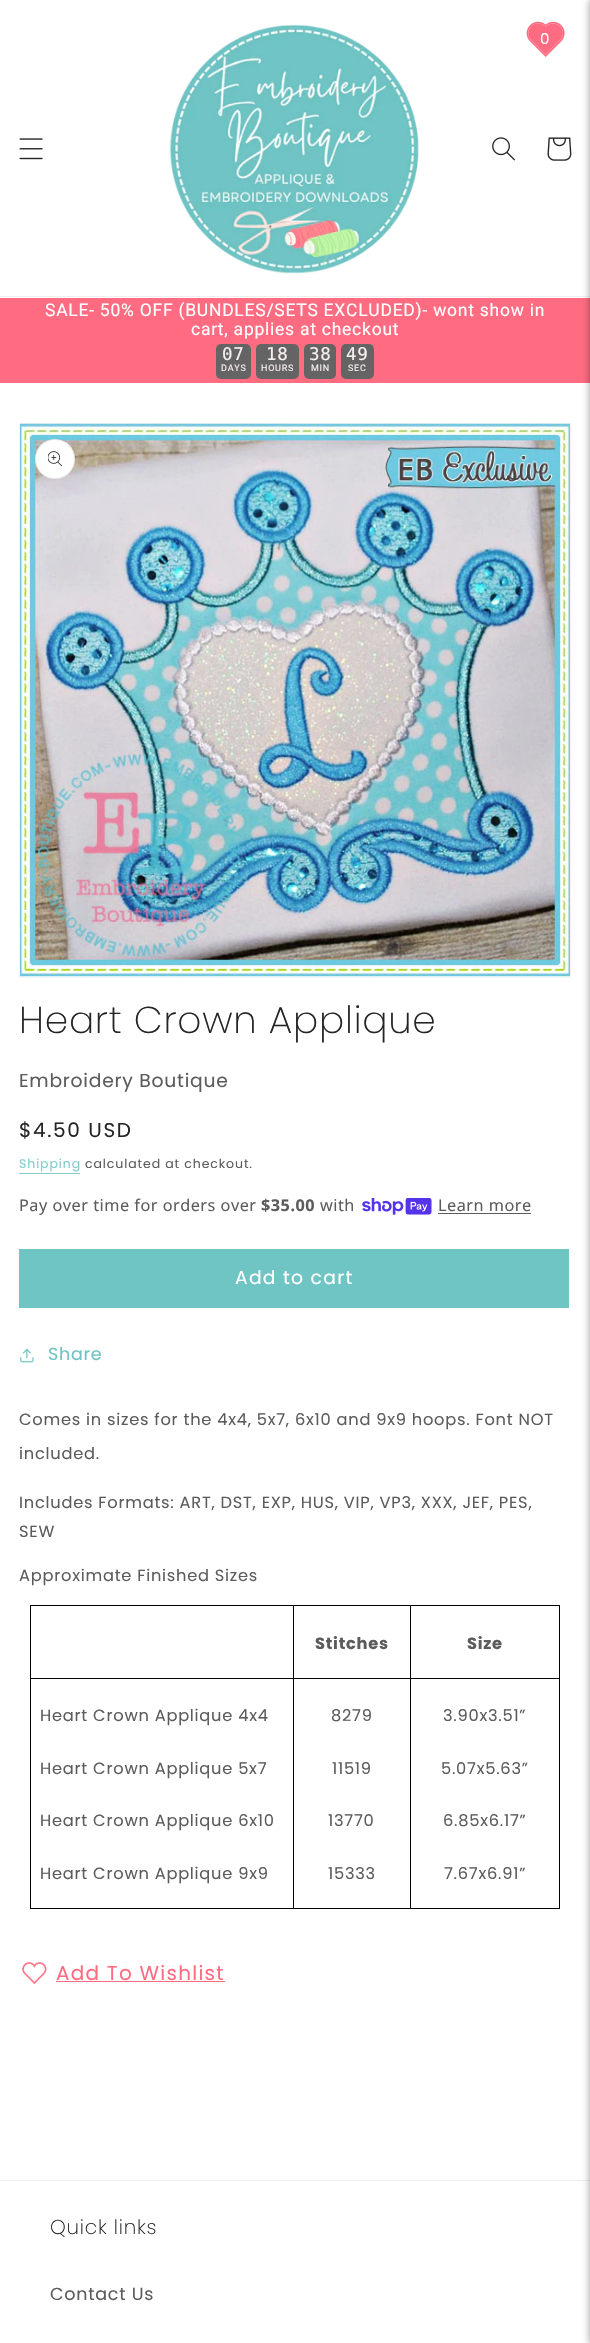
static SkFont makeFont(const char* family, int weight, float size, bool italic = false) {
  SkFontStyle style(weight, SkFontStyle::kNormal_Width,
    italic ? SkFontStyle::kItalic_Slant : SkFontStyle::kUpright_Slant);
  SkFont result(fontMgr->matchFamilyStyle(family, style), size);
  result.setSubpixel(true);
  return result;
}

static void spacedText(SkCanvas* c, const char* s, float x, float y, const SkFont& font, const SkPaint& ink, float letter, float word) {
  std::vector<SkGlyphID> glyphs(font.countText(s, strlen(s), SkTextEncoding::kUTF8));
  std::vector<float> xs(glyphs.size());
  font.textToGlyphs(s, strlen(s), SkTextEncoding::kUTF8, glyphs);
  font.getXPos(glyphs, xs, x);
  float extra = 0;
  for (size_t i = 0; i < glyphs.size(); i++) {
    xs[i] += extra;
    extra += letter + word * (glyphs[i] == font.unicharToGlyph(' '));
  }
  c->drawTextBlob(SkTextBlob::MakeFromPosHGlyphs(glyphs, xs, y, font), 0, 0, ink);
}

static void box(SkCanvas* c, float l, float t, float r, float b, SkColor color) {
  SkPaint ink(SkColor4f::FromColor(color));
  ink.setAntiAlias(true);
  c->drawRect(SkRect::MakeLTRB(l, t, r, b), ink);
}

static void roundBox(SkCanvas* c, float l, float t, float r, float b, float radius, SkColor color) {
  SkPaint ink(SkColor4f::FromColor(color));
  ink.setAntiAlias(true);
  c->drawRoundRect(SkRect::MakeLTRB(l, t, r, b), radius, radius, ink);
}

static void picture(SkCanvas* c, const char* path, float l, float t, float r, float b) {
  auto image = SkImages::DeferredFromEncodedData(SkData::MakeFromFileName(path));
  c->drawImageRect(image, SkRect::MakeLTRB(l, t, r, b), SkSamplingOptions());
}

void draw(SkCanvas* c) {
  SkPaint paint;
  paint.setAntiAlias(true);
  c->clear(0xffffffff);
  box(c, 0, 296, 590, 297, 0xffeeeeee);
  picture(c, "img_01.png", 19, 138, 43, 160);
  picture(c, "img_02.png", 169, 24, 419, 274);
  picture(c, "img_03.png", 492, 137, 515, 161);
  picture(c, "img_04.png", 547, 137, 572, 161);
  picture(c, "img_05.png", 526, 21, 565, 57);
  SkFont face1 = makeFont("Poppins", 400, 15);
  paint.setColor(0xffffffff);
  spacedText(c, "0", 540, 44, face1, paint, 0.75f, 0);
  box(c, 0, 298, 590, 383, 0xffff6c82);
  box(c, 0, 2180, 590, 2181, 0xffeeeeee);
  paint.setColor(0x80000000);
  paint.setMaskFilter(SkMaskFilter::MakeBlur(kNormal_SkBlurStyle, 4.5f));
  c->drawRect(SkRect::MakeLTRB(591, 0, 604, 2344), paint);
  paint.setMaskFilter(nullptr);
  SkFont face2 = makeFont("Roboto", 400, 17.5f);
  paint.setColor(0xffffffff);
  spacedText(c, "SALE- 50% OFF (BUNDLES/SETS EXCLUDED)- wont show in", 45, 316, face2, paint, 0.75f, 0);
  spacedText(c, "cart, applies at checkout", 191, 335, face2, paint, 0.75f, 0);
  roundBox(c, 216, 344, 251, 379, 5, 0xff656464);
  SkFont face3 = makeFont("DejaVu Sans Mono", 400, 17.5f);
  paint.setColor(0xfff8f0f0);
  spacedText(c, "07", 222, 360, face3, paint, 0.75f, 0);
  SkFont face4 = makeFont("Roboto", 400, 9);
  spacedText(c, "DAYS", 221, 371, face4, paint, 0.75f, 0);
  roundBox(c, 256, 344, 299, 379, 5, 0xff656464);
  spacedText(c, "18", 266, 360, face3, paint, 0.75f, 0);
  spacedText(c, "HOURS", 261, 371, face4, paint, 0.75f, 0);
  roundBox(c, 304, 344, 336, 379, 5, 0xff656464);
  spacedText(c, "38", 309, 360, face3, paint, 0.75f, 0);
  spacedText(c, "MIN", 311, 371, face4, paint, 0.75f, 0);
  roundBox(c, 341, 344, 374, 379, 5, 0xff656464);
  spacedText(c, "49", 346, 360, face3, paint, 0.75f, 0);
  spacedText(c, "SEC", 348, 371, face4, paint, 0.75f, 0);
  paint.setStyle(SkPaint::kStroke_Style);
  paint.setStrokeWidth(1);
  paint.setColor(0xfff4f4f4);
  c->drawRect(SkRect::MakeLTRB(19.5f, 423.5f, 570.5f, 977.5f), paint);
  picture(c, "img_06.png", 20, 423, 570, 977);
  paint.setStyle(SkPaint::kFill_Style);
  paint.setColor(0xffffffff);
  c->drawCircle(55, 459, 20, paint);
  paint.setStyle(SkPaint::kStroke_Style);
  paint.setColor(0x1a252525);
  c->drawCircle(55, 459, 19.5f, paint);
  picture(c, "img_07.png", 48, 451, 62, 467);
  SkFont face5 = makeFont("Poppins", 300, 37.5f);
  paint.setStyle(SkPaint::kFill_Style);
  paint.setColor(0xff252525);
  spacedText(c, "Heart Crown Applique", 19, 1033, face5, paint, 0.75f, 0);
  SkFont face6 = makeFont("Poppins", 400, 18.75f);
  paint.setColor(0xff5c5c5c);
  spacedText(c, "Embroidery Boutique", 19, 1087, face6, paint, 0.75f, 0);
  SkFont face7 = makeFont("Poppins", 400, 20);
  paint.setColor(0xff252525);
  spacedText(c, "$4.50 USD", 19, 1137, face7, paint, 1.6f, 0);
  SkFont face8 = makeFont("Poppins", 400, 12.5f);
  paint.setColor(0xff85cdcd);
  spacedText(c, "Shipping", 19, 1168, face8, paint, 0.9f, 0);
  box(c, 19, 1173, 80, 1174, 0xff85cdcd);
  paint.setColor(0xff5c5c5c);
  spacedText(c, "calculated at checkout.", 85, 1168, face8, paint, 0.9f, 0);
  SkFont face9 = makeFont("Noto Sans", 400, 16.25f);
  spacedText(c, "Pay over time for orders over", 19, 1211, face9, paint, 0.5f, 0);
  SkFont face10 = makeFont("Noto Sans", 700, 16.25f);
  spacedText(c, "$35.00", 261, 1211, face10, paint, 0.5f, 0);
  spacedText(c, "with", 320, 1211, face9, paint, 0.5f, 0);
  picture(c, "img_08.png", 362, 1198, 432, 1215);
  spacedText(c, "Learn more", 438, 1211, face9, paint, 0.5f, 0);
  box(c, 438, 1213, 531, 1214, 0xff5c5c5c);
  box(c, 19, 1249, 569, 1308, 0xff6fc4c4);
  paint.setColor(0xffffffff);
  spacedText(c, "Add to cart", 235, 1284, face6, paint, 1.25f, 0);
  picture(c, "img_09.png", 20, 1348, 34, 1363);
  SkFont face11 = makeFont("Poppins", 400, 17.5f);
  paint.setColor(0xff6fc4c4);
  spacedText(c, "Share", 48, 1360, face11, paint, 0.75f, 0);
  SkFont face12 = makeFont("Poppins", 400, 16.25f);
  paint.setColor(0xff5c5c5c);
  spacedText(c, "Comes in sizes for the 4x4, 5x7, 6x10 and 9x9 hoops. Font NOT", 19, 1425, face12, paint, 0.75f, 0);
  spacedText(c, "included.", 19, 1459, face12, paint, 0.75f, 0);
  spacedText(c, "Includes Formats: ART, DST, EXP, HUS, VIP, VP3, XXX, JEF, PES,", 19, 1508, face12, paint, 0.75f, 0);
  spacedText(c, "SEW", 19, 1537, face12, paint, 0.75f, 0);
  spacedText(c, "Approximate Finished Sizes", 19, 1581, face12, paint, 0.75f, 0);
  box(c, 30, 1605, 560, 1606, 0xff000000);
  box(c, 559, 1678, 560, 1909, 0xff000000);
  box(c, 559, 1605, 560, 1679, 0xff000000);
  box(c, 410, 1908, 560, 1909, 0xff000000);
  box(c, 410, 1678, 411, 1909, 0xff000000);
  box(c, 410, 1678, 560, 1679, 0xff000000);
  box(c, 410, 1605, 411, 1679, 0xff000000);
  box(c, 293, 1908, 411, 1909, 0xff000000);
  box(c, 293, 1678, 294, 1909, 0xff000000);
  box(c, 293, 1678, 411, 1679, 0xff000000);
  box(c, 293, 1605, 294, 1679, 0xff000000);
  box(c, 30, 1908, 294, 1909, 0xff000000);
  box(c, 30, 1678, 31, 1909, 0xff000000);
  box(c, 30, 1678, 294, 1679, 0xff000000);
  box(c, 30, 1605, 31, 1679, 0xff000000);
  SkFont face13 = makeFont("Poppins", 700, 16.25f);
  spacedText(c, "Stitches", 315, 1649, face13, paint, 0.75f, 0);
  spacedText(c, "Size", 467, 1649, face13, paint, 0.75f, 0);
  spacedText(c, "Heart Crown Applique 4x4", 40, 1721, face12, paint, 0.75f, 0);
  spacedText(c, "Heart Crown Applique 5x7", 40, 1774, face12, paint, 0.75f, 0);
  spacedText(c, "Heart Crown Applique 6x10", 40, 1826, face12, paint, 0.75f, 0);
  spacedText(c, "Heart Crown Applique 9x9", 40, 1879, face12, paint, 0.75f, 0);
  spacedText(c, "8279", 331, 1721, face12, paint, 0.75f, 0);
  spacedText(c, "11519", 332, 1774, face12, paint, 0.75f, 0);
  spacedText(c, "13770", 328, 1826, face12, paint, 0.75f, 0);
  spacedText(c, "15333", 328, 1879, face12, paint, 0.75f, 0);
  spacedText(c, "3.90x3.51”", 443, 1721, face12, paint, 0.75f, 0);
  spacedText(c, "5.07x5.63”", 441, 1774, face12, paint, 0.75f, 0);
  spacedText(c, "6.85x6.17”", 443, 1826, face12, paint, 0.75f, 0);
  spacedText(c, "7.67x6.91”", 444, 1879, face12, paint, 0.75f, 0);
  picture(c, "img_10.png", 22, 1962, 47, 1984);
  paint.setColor(0xffff6c82);
  spacedText(c, "Add To Wishlist", 56, 1980, face7, paint, 1.25f, 0);
  box(c, 56, 1981, 225, 1982, 0xffff6c82);
  SkFont face14 = makeFont("Poppins", 300, 20);
  paint.setColor(0xff252525);
  spacedText(c, "Quick links", 50, 2234, face14, paint, 0.75f, 0);
  paint.setColor(0xff5c5c5c);
  spacedText(c, "Contact Us", 50, 2300, face11, paint, 0.75f, 0);
}
